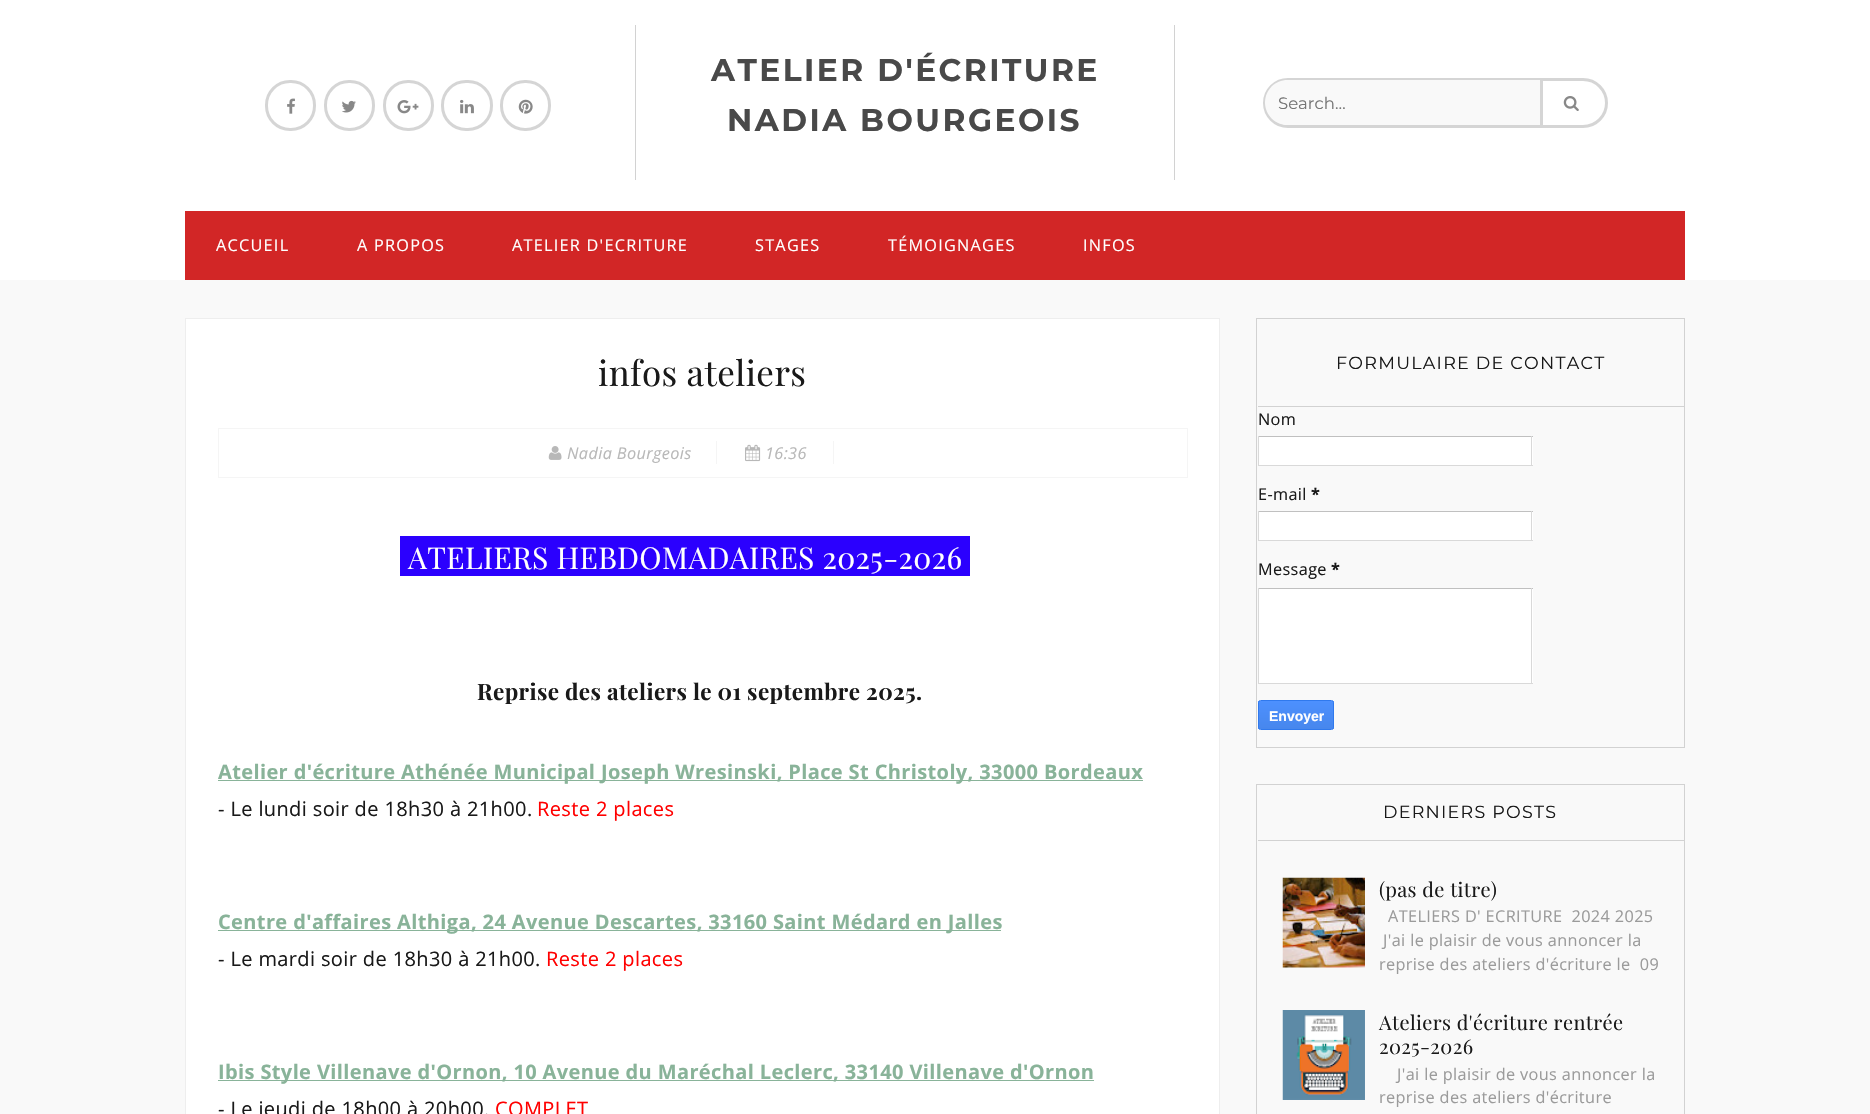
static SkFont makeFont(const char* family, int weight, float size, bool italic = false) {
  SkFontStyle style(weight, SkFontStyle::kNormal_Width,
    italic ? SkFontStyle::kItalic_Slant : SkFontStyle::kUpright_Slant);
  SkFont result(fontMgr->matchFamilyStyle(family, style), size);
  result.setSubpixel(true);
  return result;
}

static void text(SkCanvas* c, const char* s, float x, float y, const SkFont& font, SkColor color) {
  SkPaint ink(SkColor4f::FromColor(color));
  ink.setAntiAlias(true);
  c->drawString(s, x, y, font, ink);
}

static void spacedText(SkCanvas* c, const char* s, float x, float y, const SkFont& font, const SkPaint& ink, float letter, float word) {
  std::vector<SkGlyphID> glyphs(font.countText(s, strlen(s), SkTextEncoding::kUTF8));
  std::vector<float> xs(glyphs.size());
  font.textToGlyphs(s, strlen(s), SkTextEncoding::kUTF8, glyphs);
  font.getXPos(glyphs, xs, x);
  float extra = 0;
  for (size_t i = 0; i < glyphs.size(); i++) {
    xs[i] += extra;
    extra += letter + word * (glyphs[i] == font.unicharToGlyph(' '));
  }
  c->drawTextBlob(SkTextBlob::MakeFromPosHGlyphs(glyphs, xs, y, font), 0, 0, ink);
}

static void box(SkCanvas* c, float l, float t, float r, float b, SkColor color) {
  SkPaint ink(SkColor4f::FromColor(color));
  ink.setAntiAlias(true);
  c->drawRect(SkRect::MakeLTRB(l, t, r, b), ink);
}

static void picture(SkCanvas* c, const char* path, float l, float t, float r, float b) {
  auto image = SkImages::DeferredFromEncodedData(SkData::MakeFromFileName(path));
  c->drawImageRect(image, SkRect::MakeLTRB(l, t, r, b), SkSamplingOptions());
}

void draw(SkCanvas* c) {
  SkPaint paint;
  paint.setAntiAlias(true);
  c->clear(0xffffffff);
  paint.setStyle(SkPaint::kStroke_Style);
  paint.setStrokeWidth(3);
  paint.setColor(0xffd5d5d5);
  c->drawRoundRect(SkRect::MakeLTRB(266.5f, 81.5f, 314.5f, 129.5f), 23.5f, 23.5f, paint);
  picture(c, "img_01.png", 287, 98, 295, 114);
  c->drawRoundRect(SkRect::MakeLTRB(325.5f, 81.5f, 373.5f, 129.5f), 23.5f, 23.5f, paint);
  picture(c, "img_02.png", 342, 100, 356, 113);
  c->drawRoundRect(SkRect::MakeLTRB(384.5f, 81.5f, 432.5f, 129.5f), 23.5f, 23.5f, paint);
  picture(c, "img_03.png", 397, 100, 419, 114);
  c->drawRoundRect(SkRect::MakeLTRB(442.5f, 81.5f, 491.5f, 129.5f), 23.5f, 23.5f, paint);
  picture(c, "img_04.png", 460, 99, 474, 114);
  c->drawRoundRect(SkRect::MakeLTRB(501.5f, 81.5f, 549.5f, 129.5f), 23.5f, 23.5f, paint);
  picture(c, "img_05.png", 518, 99, 533, 114);
  box(c, 1174, 25, 1175, 180, 0xffd2d2d2);
  box(c, 635, 25, 636, 180, 0xffd2d2d2);
  SkFont face1 = makeFont("Montserrat", 700, 31.25f);
  paint.setStyle(SkPaint::kFill_Style);
  paint.setColor(0xff494949);
  spacedText(c, "ATELIER D'ÉCRITURE", 711, 81, face1, paint, 2.5f, 0);
  spacedText(c, "NADIA BOURGEOIS", 727, 131, face1, paint, 2.5f, 0);
  paint.setStyle(SkPaint::kStroke_Style);
  paint.setColor(0xffd5d5d5);
  c->drawRoundRect(SkRect::MakeLTRB(1264.5f, 79.5f, 1606.5f, 126.5f), 23.5f, 23.5f, paint);
  paint.setStyle(SkPaint::kFill_Style);
  paint.setColor(0xfff9f9f9);
  c->drawPath(SkPathBuilder().moveTo(1287.5f, 80).lineTo(1543, 80).lineTo(1543, 125).lineTo(1287.5f, 125).cubicTo(1275, 125, 1265, 115, 1265, 102.5f).cubicTo(1265, 90, 1275, 80, 1287.5f, 80).close().detach(), paint);
  box(c, 1540, 80, 1543, 125, 0xffd5d5d5);
  SkFont face2 = makeFont("Montserrat", 400, 16.5f);
  text(c, "Search…", 1278, 109, face2, 0xff757575);
  picture(c, "img_06.png", 1563, 96, 1579, 111);
  box(c, 185, 211, 1685, 280, 0xffd22626);
  SkFont face3 = makeFont("Open Sans", 400, 16.25f);
  paint.setColor(0xffffffff);
  spacedText(c, "ACCUEIL", 216, 251, face3, paint, 1.25f, 0);
  spacedText(c, "A PROPOS", 357, 251, face3, paint, 1.25f, 0);
  spacedText(c, "ATELIER D'ECRITURE", 512, 251, face3, paint, 1.25f, 0);
  spacedText(c, "STAGES", 755, 251, face3, paint, 1.25f, 0);
  spacedText(c, "TÉMOIGNAGES", 888, 251, face3, paint, 1.25f, 0);
  spacedText(c, "INFOS", 1083, 251, face3, paint, 1.25f, 0);
  box(c, 0, 280, 1870, 1114, 0xfff9f9f9);
  c->drawRect(SkRect::MakeLTRB(185.5f, 318.5f, 1219.5f, 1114.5f), paint);
  paint.setStyle(SkPaint::kStroke_Style);
  paint.setStrokeWidth(1);
  paint.setColor(0xffeeeeee);
  c->drawRect(SkRect::MakeLTRB(185.5f, 318.5f, 1219.5f, 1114.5f), paint);
  SkFont face4 = makeFont("Playfair Display", 400, 35);
  paint.setStyle(SkPaint::kFill_Style);
  paint.setColor(0xff191919);
  spacedText(c, "infos ateliers", 598, 386, face4, paint, 0.38f, 0);
  paint.setStyle(SkPaint::kStroke_Style);
  paint.setColor(0xfff5f5f5);
  c->drawRect(SkRect::MakeLTRB(218.5f, 428.5f, 1187.5f, 477.5f), paint);
  box(c, 716, 441, 717, 464, 0xfff5f5f5);
  picture(c, "img_07.png", 548, 446, 562, 460);
  SkFont face5 = makeFont("Open Sans", 400, 16.25f, true);
  paint.setStyle(SkPaint::kFill_Style);
  paint.setColor(0xffb8b8b8);
  spacedText(c, "Nadia Bourgeois", 567, 459, face5, paint, 0.38f, 0);
  box(c, 833, 441, 834, 464, 0xfff5f5f5);
  picture(c, "img_08.png", 745, 444, 761, 462);
  spacedText(c, "16:36", 765, 459, face5, paint, 0.38f, 0);
  box(c, 400, 536, 970, 576, 0xff2b00fe);
  SkFont face6 = makeFont("Playfair Display", 400, 30);
  paint.setColor(0xffffffff);
  spacedText(c, "ATELIERS HEBDOMADAIRES 2025-2026", 408, 569, face6, paint, 0.38f, 0);
  SkFont face7 = makeFont("Playfair Display", 700, 22.5f);
  paint.setColor(0xff191919);
  spacedText(c, "Reprise des ateliers le 01 septembre 2025.", 477, 700, face7, paint, 0.38f, 0);
  box(c, 218, 780, 1143, 781, 0xff89b399);
  SkFont face8 = makeFont("Open Sans", 700, 20);
  paint.setColor(0xff89b399);
  spacedText(c, "Atelier d'écriture Athénée Municipal Joseph Wresinski, Place St Christoly, 33000 Bordeaux", 218, 779, face8, paint, 0.38f, 0);
  SkFont face9 = makeFont("Open Sans", 400, 20);
  paint.setColor(0xff191919);
  spacedText(c, "- Le lundi soir de 18h30 à 21h00.", 218, 816, face9, paint, 0.38f, 0);
  paint.setColor(0xffff0000);
  spacedText(c, "Reste 2 places", 537, 816, face9, paint, 0.38f, 0);
  box(c, 218, 930, 1001, 931, 0xff89b399);
  paint.setColor(0xff89b399);
  spacedText(c, "Centre d'affaires Althiga, 24 Avenue Descartes, 33160 Saint Médard en Jalles", 218, 929, face8, paint, 0.38f, 0);
  paint.setColor(0xff191919);
  spacedText(c, "- Le mardi soir de 18h30 à 21h00.", 218, 966, face9, paint, 0.38f, 0);
  paint.setColor(0xffff0000);
  spacedText(c, "Reste 2 places", 546, 966, face9, paint, 0.38f, 0);
  box(c, 218, 1080, 1094, 1081, 0xff89b399);
  paint.setColor(0xff89b399);
  spacedText(c, "Ibis Style Villenave d'Ornon, 10 Avenue du Maréchal Leclerc, 33140 Villenave d'Ornon", 218, 1079, face8, paint, 0.38f, 0);
  paint.setColor(0xff191919);
  spacedText(c, "- Le jeudi de 18h00 à 20h00.", 218, 1116, face9, paint, 0.38f, 0);
  paint.setColor(0xffff0000);
  spacedText(c, "COMPLET", 495, 1116, face9, paint, 0.38f, 0);
  paint.setStyle(SkPaint::kStroke_Style);
  paint.setColor(0xffd2d2d2);
  c->drawRect(SkRect::MakeLTRB(1256.5f, 318.5f, 1684.5f, 747.5f), paint);
  box(c, 1258, 406, 1684, 407, 0xffd2d2d2);
  SkFont face10 = makeFont("Montserrat", 400, 17.5f);
  paint.setStyle(SkPaint::kFill_Style);
  paint.setColor(0xff191919);
  spacedText(c, "FORMULAIRE DE CONTACT", 1336, 369, face10, paint, 1.25f, 0);
  spacedText(c, "Nom", 1258, 425, face3, paint, 0.38f, 0);
  box(c, 1259, 437, 1533, 465, 0xffffffff);
  box(c, 1258, 436, 1533, 437, 0xffc0c0c0);
  box(c, 1531, 436, 1532, 466, 0xffd9d9d9);
  box(c, 1258, 465, 1533, 466, 0xffd9d9d9);
  box(c, 1258, 436, 1259, 466, 0xffd9d9d9);
  spacedText(c, "E-mail", 1258, 500, face3, paint, 0.38f, 0);
  SkFont face11 = makeFont("Open Sans", 700, 16.25f);
  spacedText(c, "*", 1311, 500, face11, paint, 0.38f, 0);
  box(c, 1259, 512, 1533, 540, 0xffffffff);
  box(c, 1258, 511, 1533, 512, 0xffc0c0c0);
  box(c, 1531, 511, 1532, 541, 0xffd9d9d9);
  box(c, 1258, 540, 1533, 541, 0xffd9d9d9);
  box(c, 1258, 511, 1259, 541, 0xffd9d9d9);
  spacedText(c, "Message", 1258, 575, face3, paint, 0.38f, 0);
  spacedText(c, "*", 1331, 575, face11, paint, 0.38f, 0);
  box(c, 1259, 589, 1533, 683, 0xffffffff);
  box(c, 1258, 588, 1533, 589, 0xffc0c0c0);
  box(c, 1531, 588, 1532, 684, 0xffd9d9d9);
  box(c, 1258, 683, 1533, 684, 0xffd9d9d9);
  box(c, 1258, 588, 1259, 684, 0xffd9d9d9);
  c->save();
  c->clipPath(SkPathBuilder().moveTo(1260.5f, 700).lineTo(1331.5f, 700).cubicTo(1333, 700, 1334, 701, 1334, 702.5f).lineTo(1334, 727.5f).cubicTo(1334, 729, 1333, 730, 1331.5f, 730).lineTo(1260.5f, 730).cubicTo(1259, 730, 1258, 729, 1258, 727.5f).lineTo(1258, 702.5f).cubicTo(1258, 701, 1259, 700, 1260.5f, 700).close().detach(), true);
  {
    const SkColor colors[] = {0xff4d90fe, 0xff4787ed};
    const float stops[] = {0, 1};
    const SkPoint ends[] = {{1296, 701}, {1296, 729}};
    paint.setShader(SkGradientShader::MakeLinear(ends, colors, stops, 2, SkTileMode::kClamp));
    paint.setAlpha(255);
  }
  c->drawRect(SkRect::MakeLTRB(1258, 701, 1334, 729), paint);
  c->restore();
  paint.setStyle(SkPaint::kStroke_Style);
  paint.setShader(nullptr);
  paint.setColor(0xff3079ed);
  c->drawRoundRect(SkRect::MakeLTRB(1258.5f, 700.5f, 1333.5f, 729.5f), 2, 2, paint);
  SkFont face12 = makeFont("Liberation Sans", 700, 14);
  text(c, "Envoyer", 1269, 721, face12, 0xffffffff);
  paint.setColor(0xffd2d2d2);
  c->drawRect(SkRect::MakeLTRB(1256.5f, 784.5f, 1684.5f, 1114.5f), paint);
  box(c, 1258, 840, 1684, 841, 0xffd2d2d2);
  paint.setStyle(SkPaint::kFill_Style);
  paint.setColor(0xff191919);
  spacedText(c, "DERNIERS POSTS", 1383, 818, face10, paint, 1.25f, 0);
  picture(c, "img_09.png", 1282, 877, 1365, 968);
  SkFont face13 = makeFont("Playfair Display", 400, 20);
  spacedText(c, "(pas de titre)", 1379, 897, face13, paint, 0.38f, 0);
  paint.setColor(0xff9b9b9b);
  spacedText(c, "ATELIERS D' ECRITURE  2024 2025", 1388, 922, face3, paint, 0.38f, 0);
  spacedText(c, "J'ai le plaisir de vous annoncer la", 1383, 946, face3, paint, 0.38f, 0);
  spacedText(c, "reprise des ateliers d'écriture le  09", 1379, 970, face3, paint, 0.38f, 0);
  picture(c, "img_10.png", 1282, 1010, 1365, 1100);
  paint.setColor(0xff191919);
  spacedText(c, "Ateliers d'écriture rentrée", 1379, 1030, face13, paint, 0.38f, 0);
  spacedText(c, "2025-2026", 1379, 1054, face13, paint, 0.38f, 0);
  paint.setColor(0xff9b9b9b);
  spacedText(c, "J'ai le plaisir de vous annoncer la", 1397, 1080, face3, paint, 0.38f, 0);
  spacedText(c, "reprise des ateliers d'écriture", 1379, 1103, face3, paint, 0.38f, 0);
}
